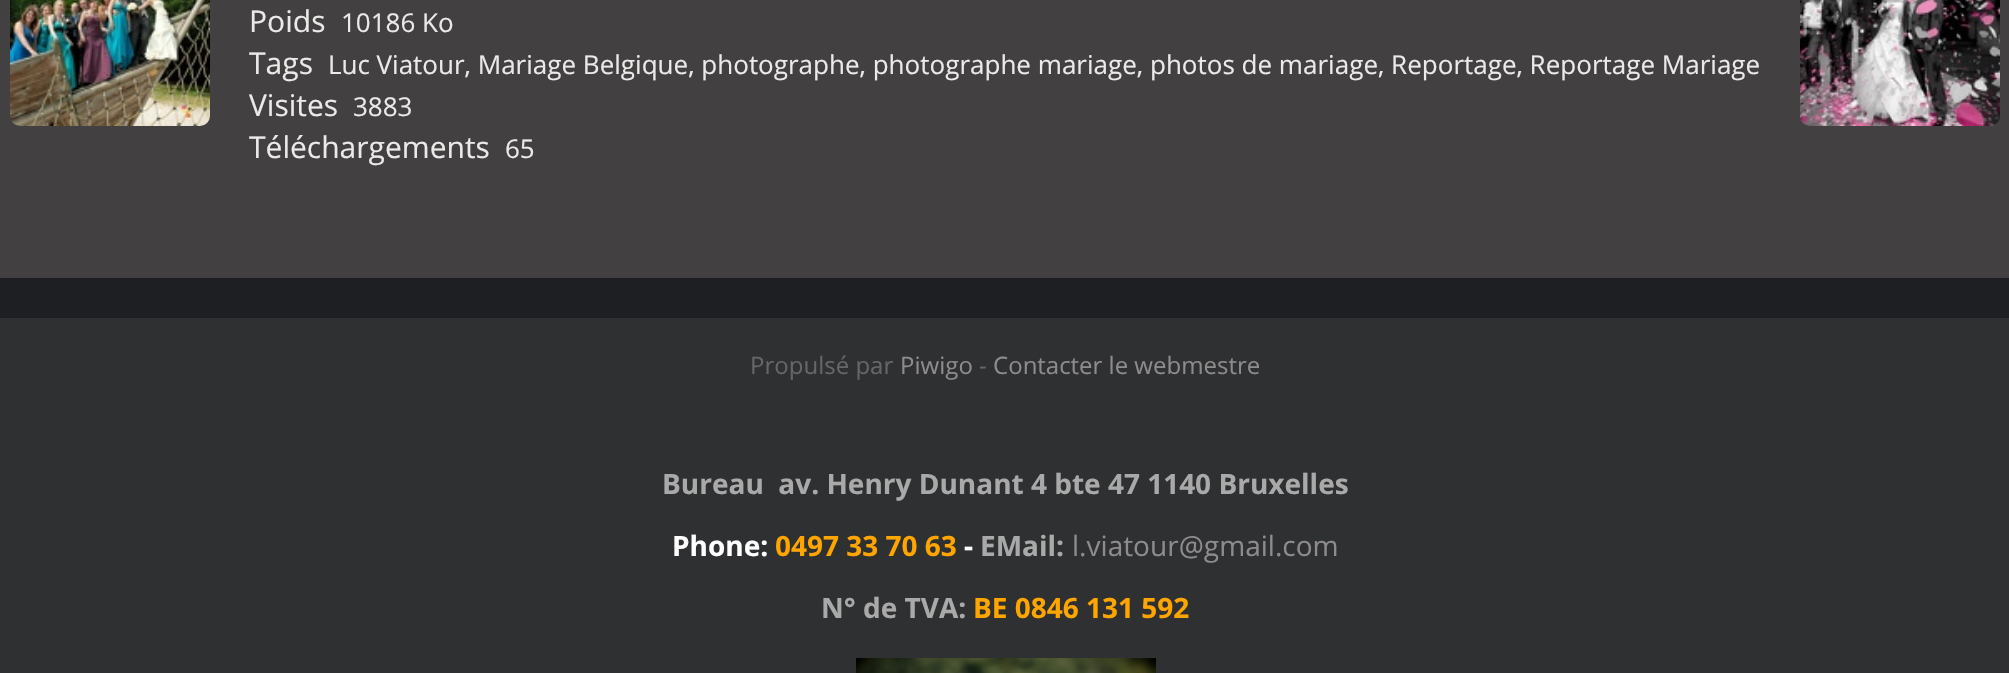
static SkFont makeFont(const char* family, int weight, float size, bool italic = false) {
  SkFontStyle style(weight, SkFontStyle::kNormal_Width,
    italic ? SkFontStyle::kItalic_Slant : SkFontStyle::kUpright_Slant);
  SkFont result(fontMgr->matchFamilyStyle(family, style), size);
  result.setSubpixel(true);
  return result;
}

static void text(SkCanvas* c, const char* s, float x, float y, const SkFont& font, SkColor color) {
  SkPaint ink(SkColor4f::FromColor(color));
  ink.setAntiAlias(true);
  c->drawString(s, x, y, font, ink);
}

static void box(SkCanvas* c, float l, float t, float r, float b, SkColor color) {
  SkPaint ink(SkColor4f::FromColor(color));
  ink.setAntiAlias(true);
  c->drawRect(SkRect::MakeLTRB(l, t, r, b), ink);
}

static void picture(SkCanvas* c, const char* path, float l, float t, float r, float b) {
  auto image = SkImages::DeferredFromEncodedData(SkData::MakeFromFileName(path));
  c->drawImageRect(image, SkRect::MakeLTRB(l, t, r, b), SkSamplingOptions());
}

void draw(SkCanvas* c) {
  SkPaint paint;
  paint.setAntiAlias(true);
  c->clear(0xff1e1f23);
  box(c, 0, 0, 2009, 278, 0xff424040);
  picture(c, "img_01.png", 10, 0, 210, 126);
  picture(c, "img_02.png", 1800, 0, 2000, 126);
  SkFont face1 = makeFont("Open Sans", 400, 30);
  text(c, "Poids", 249, 32, face1, 0xffeaeae9);
  SkFont face2 = makeFont("Open Sans", 400, 26);
  text(c, "10186 Ko", 341, 32, face2, 0xffeaeae9);
  text(c, "Tags", 249, 74, face1, 0xffeaeae9);
  text(c, "Luc Viatour, Mariage Belgique, photographe, photographe mariage, photos de mariage, Reportage, Reportage Mariage", 328, 74, face2, 0xffeaeae9);
  text(c, "Visites", 249, 116, face1, 0xffeaeae9);
  text(c, "3883", 353, 116, face2, 0xffeaeae9);
  text(c, "Téléchargements", 249, 158, face1, 0xffeaeae9);
  text(c, "65", 505, 158, face2, 0xffeaeae9);
  box(c, 0, 318, 2009, 673, 0xff2f3032);
  SkFont face3 = makeFont("Open Sans", 400, 24);
  text(c, "Propulsé par", 750, 374, face3, 0xff666666);
  text(c, "Piwigo", 900, 374, face3, 0xff8d8b8b);
  text(c, "-", 979, 374, face3, 0xff666666);
  text(c, "Contacter le webmestre", 993, 374, face3, 0xff8d8b8b);
  SkFont face4 = makeFont("Open Sans", 700, 28);
  text(c, "Bureau  av. Henry Dunant 4 bte 47 1140 Bruxelles", 662, 494, face4, 0xffa9a9a9);
  text(c, "Phone:", 672, 556, face4, 0xffffffff);
  text(c, "0497 33 70 63", 775, 556, face4, 0xffffa500);
  text(c, "-", 964, 556, face4, 0xffffffff);
  text(c, "EMail:", 980, 556, face4, 0xffa9a9a9);
  SkFont face5 = makeFont("Open Sans", 400, 28);
  text(c, "l.viatour@gmail.com", 1072, 556, face5, 0xff8d8b8b);
  text(c, "N° de TVA:", 821, 618, face4, 0xffa9a9a9);
  text(c, "BE 0846 131 592", 973, 618, face4, 0xffffa500);
  picture(c, "img_03.png", 856, 658, 1156, 673);
}
